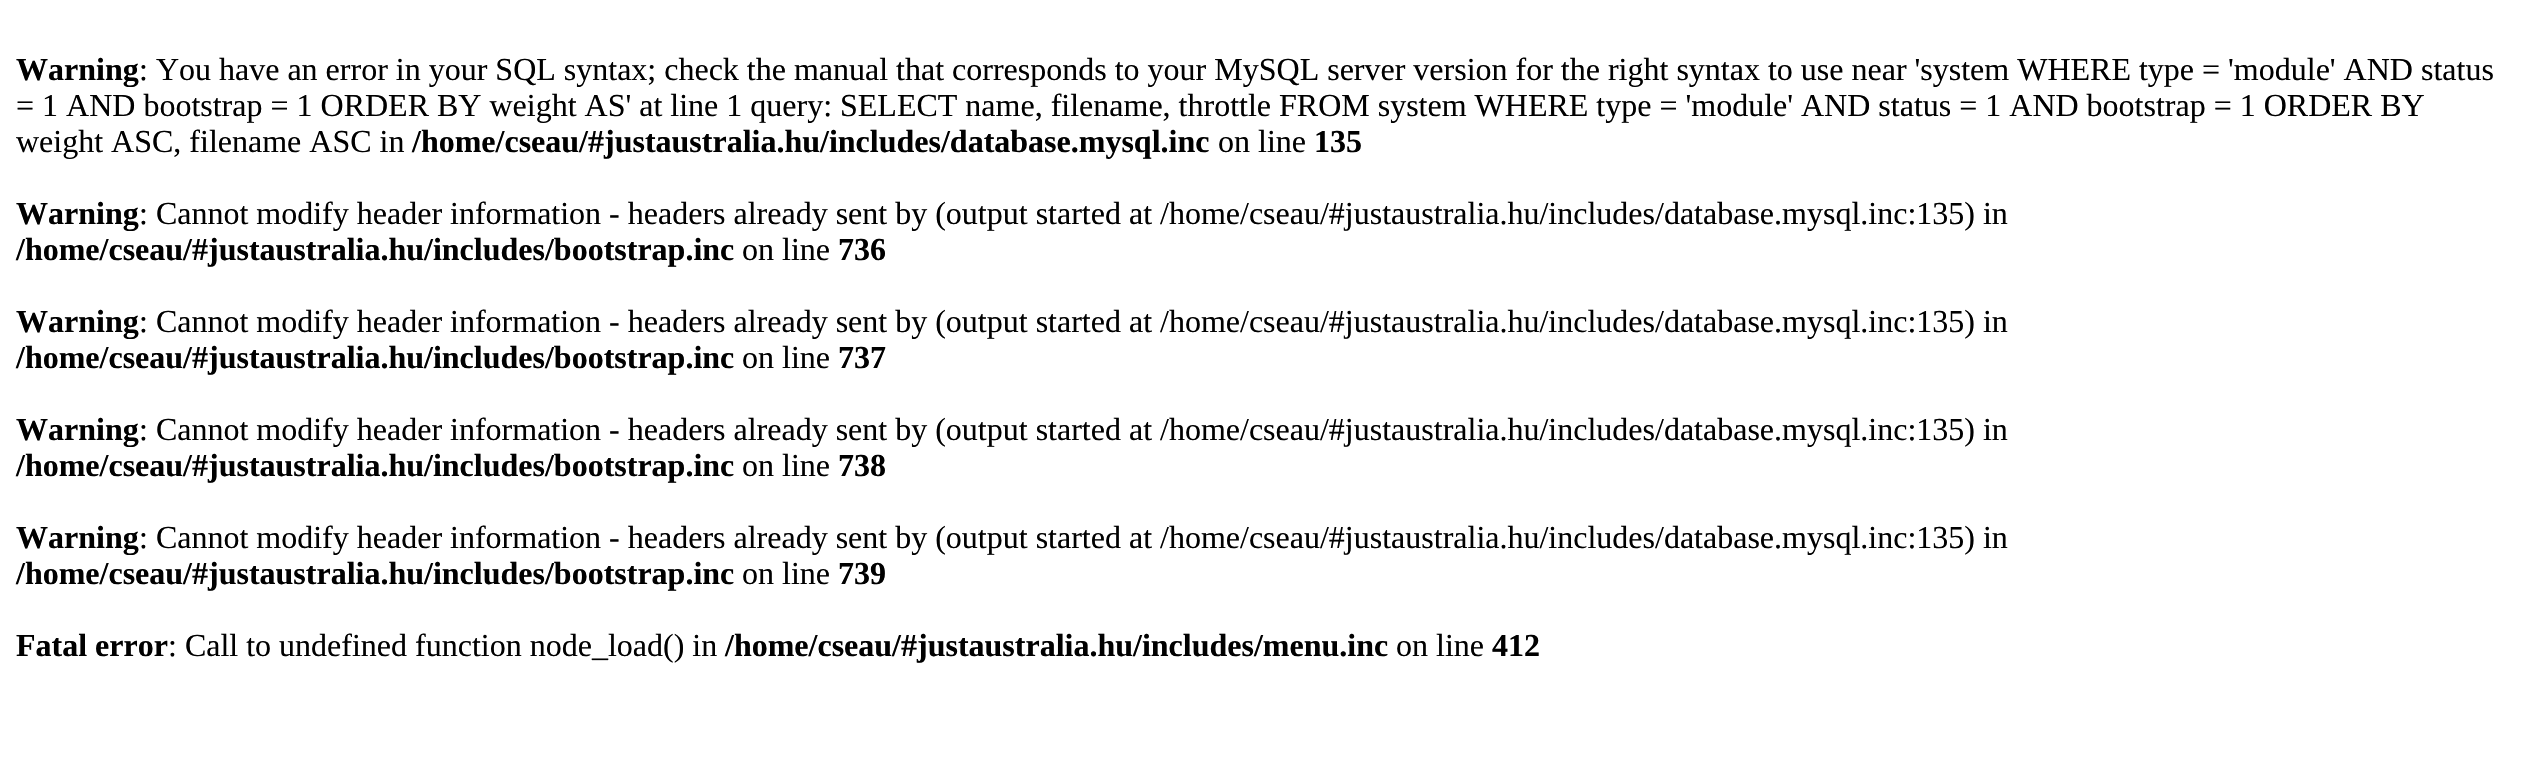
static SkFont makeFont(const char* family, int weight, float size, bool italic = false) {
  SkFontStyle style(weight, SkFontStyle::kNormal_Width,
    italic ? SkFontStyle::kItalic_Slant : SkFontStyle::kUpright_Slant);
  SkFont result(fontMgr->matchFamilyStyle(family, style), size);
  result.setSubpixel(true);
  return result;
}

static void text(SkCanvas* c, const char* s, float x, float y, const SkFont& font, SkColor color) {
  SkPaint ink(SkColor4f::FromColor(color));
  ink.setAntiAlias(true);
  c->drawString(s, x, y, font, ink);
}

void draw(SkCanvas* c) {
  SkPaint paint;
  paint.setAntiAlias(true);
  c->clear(0xffffffff);
  SkFont face1 = makeFont("Liberation Serif", 700, 32);
  text(c, "Warning", 16, 80, face1, 0xff000000);
  SkFont face2 = makeFont("Liberation Serif", 400, 32);
  text(c, ": You have an error in your SQL syntax; check the manual that corresponds to your MySQL server version for the right syntax to use near 'system WHERE type = 'module' AND status", 139, 80, face2, 0xff000000);
  text(c, "= 1 AND bootstrap = 1 ORDER BY weight AS' at line 1 query: SELECT name, filename, throttle FROM system WHERE type = 'module' AND status = 1 AND bootstrap = 1 ORDER BY", 16, 116, face2, 0xff000000);
  text(c, "weight ASC, filename ASC in", 16, 152, face2, 0xff000000);
  text(c, "/home/cseau/#justaustralia.hu/includes/database.mysql.inc", 412, 152, face1, 0xff000000);
  text(c, "on line", 1218, 152, face2, 0xff000000);
  text(c, "135", 1314, 152, face1, 0xff000000);
  text(c, "Warning", 16, 224, face1, 0xff000000);
  text(c, ": Cannot modify header information - headers already sent by (output started at /home/cseau/#justaustralia.hu/includes/database.mysql.inc:135) in", 139, 224, face2, 0xff000000);
  text(c, "/home/cseau/#justaustralia.hu/includes/bootstrap.inc", 16, 260, face1, 0xff000000);
  text(c, "on line", 742, 260, face2, 0xff000000);
  text(c, "736", 838, 260, face1, 0xff000000);
  text(c, "Warning", 16, 332, face1, 0xff000000);
  text(c, ": Cannot modify header information - headers already sent by (output started at /home/cseau/#justaustralia.hu/includes/database.mysql.inc:135) in", 139, 332, face2, 0xff000000);
  text(c, "/home/cseau/#justaustralia.hu/includes/bootstrap.inc", 16, 368, face1, 0xff000000);
  text(c, "on line", 742, 368, face2, 0xff000000);
  text(c, "737", 838, 368, face1, 0xff000000);
  text(c, "Warning", 16, 440, face1, 0xff000000);
  text(c, ": Cannot modify header information - headers already sent by (output started at /home/cseau/#justaustralia.hu/includes/database.mysql.inc:135) in", 139, 440, face2, 0xff000000);
  text(c, "/home/cseau/#justaustralia.hu/includes/bootstrap.inc", 16, 476, face1, 0xff000000);
  text(c, "on line", 742, 476, face2, 0xff000000);
  text(c, "738", 838, 476, face1, 0xff000000);
  text(c, "Warning", 16, 548, face1, 0xff000000);
  text(c, ": Cannot modify header information - headers already sent by (output started at /home/cseau/#justaustralia.hu/includes/database.mysql.inc:135) in", 139, 548, face2, 0xff000000);
  text(c, "/home/cseau/#justaustralia.hu/includes/bootstrap.inc", 16, 584, face1, 0xff000000);
  text(c, "on line", 742, 584, face2, 0xff000000);
  text(c, "739", 838, 584, face1, 0xff000000);
  text(c, "Fatal error", 16, 656, face1, 0xff000000);
  text(c, ": Call to undefined function node_load() in", 168, 656, face2, 0xff000000);
  text(c, "/home/cseau/#justaustralia.hu/includes/menu.inc", 725, 656, face1, 0xff000000);
  text(c, "on line", 1396, 656, face2, 0xff000000);
  text(c, "412", 1492, 656, face1, 0xff000000);
}
